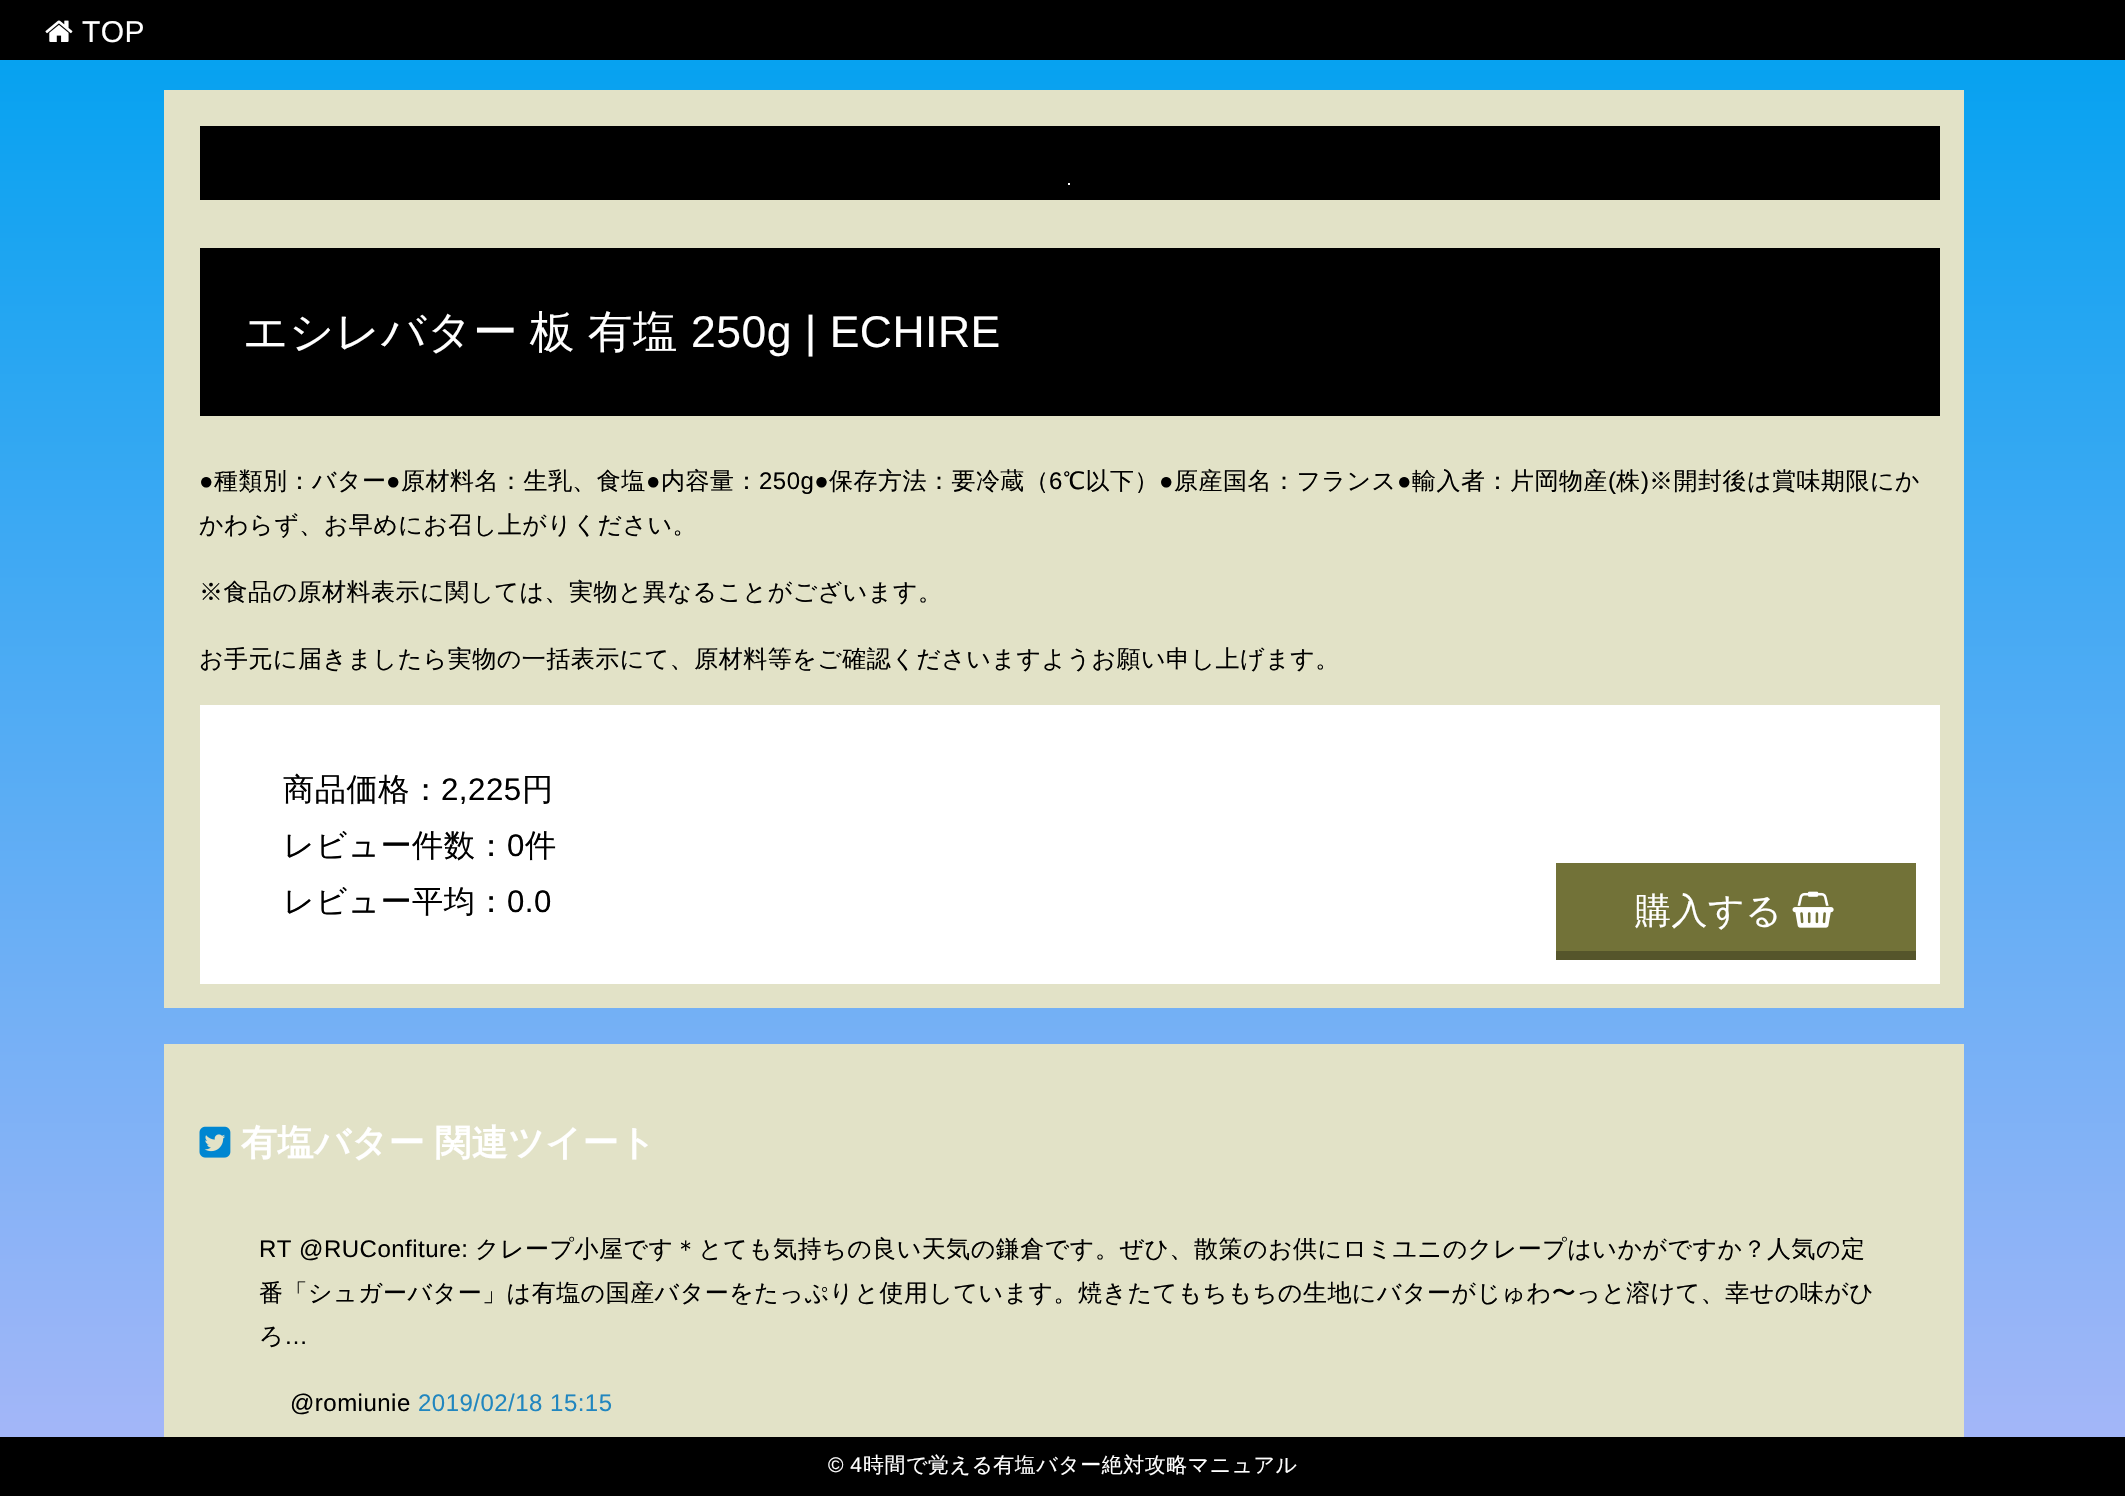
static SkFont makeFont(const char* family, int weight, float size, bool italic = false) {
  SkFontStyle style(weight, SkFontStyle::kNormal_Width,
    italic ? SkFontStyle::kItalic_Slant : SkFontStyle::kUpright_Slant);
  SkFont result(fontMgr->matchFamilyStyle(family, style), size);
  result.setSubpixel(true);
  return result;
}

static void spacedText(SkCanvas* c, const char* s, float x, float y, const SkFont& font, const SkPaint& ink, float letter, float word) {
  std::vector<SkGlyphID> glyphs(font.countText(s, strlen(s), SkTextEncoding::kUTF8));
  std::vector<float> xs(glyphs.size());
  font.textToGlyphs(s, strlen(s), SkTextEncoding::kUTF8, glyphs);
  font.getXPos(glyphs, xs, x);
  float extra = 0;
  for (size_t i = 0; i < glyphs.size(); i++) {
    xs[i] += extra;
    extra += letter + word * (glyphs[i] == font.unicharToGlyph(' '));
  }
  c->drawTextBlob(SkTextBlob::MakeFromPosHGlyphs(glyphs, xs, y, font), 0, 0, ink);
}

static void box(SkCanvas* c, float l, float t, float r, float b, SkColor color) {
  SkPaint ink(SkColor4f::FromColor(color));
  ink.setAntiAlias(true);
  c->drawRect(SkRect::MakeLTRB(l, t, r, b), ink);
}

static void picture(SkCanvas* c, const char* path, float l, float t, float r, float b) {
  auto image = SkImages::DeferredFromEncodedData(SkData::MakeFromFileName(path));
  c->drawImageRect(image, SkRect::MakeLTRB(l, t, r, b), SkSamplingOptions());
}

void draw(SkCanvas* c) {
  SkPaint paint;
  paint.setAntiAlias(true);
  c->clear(0xffffffff);
  box(c, 0, 0, 2125, 60, 0xff000000);
  picture(c, "img_01.png", 45, 20, 73, 42);
  SkFont face1 = makeFont("Liberation Sans", 400, 30);
  paint.setColor(0xffffffff);
  spacedText(c, "TOP", 82, 42, face1, paint, 0.48f, 0);
  {
    const SkColor colors[] = {0xff00a1f0, 0xffaab7f8};
    const float stops[] = {0, 1};
    const SkPoint ends[] = {{1063, 0}, {1063, 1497}};
    paint.setShader(SkGradientShader::MakeLinear(ends, colors, stops, 2, SkTileMode::kClamp));
    paint.setAlpha(255);
  }
  c->drawRect(SkRect::MakeLTRB(0, 60, 2125, 1437), paint);
  box(c, 164, 90, 1964, 1008, 0xffe2e2c7);
  box(c, 200, 126, 1940, 200, 0xff000000);
  box(c, 1068, 183, 1070, 185, 0xffffffff);
  box(c, 200, 248, 1940, 416, 0xff000000);
  SkFont face2 = makeFont("WenQuanYi Zen Hei", 500, 44.5f);
  paint.setShader(nullptr);
  paint.setColor(0xffffffff);
  spacedText(c, "エシレバター", 243, 347, face2, paint, 0.48f, 0);
  spacedText(c, "板", 530, 347, face2, paint, 0.48f, 0);
  spacedText(c, "有塩", 588, 347, face2, paint, 0.48f, 0);
  SkFont face3 = makeFont("Liberation Sans", 400, 44.5f);
  spacedText(c, "250g | ECHIRE", 691, 347, face3, paint, 0.48f, 0);
  SkFont face4 = makeFont("Liberation Sans", 400, 24);
  paint.setColor(0xff000000);
  spacedText(c, "●", 199, 489, face4, paint, 0.48f, 0);
  SkFont face5 = makeFont("WenQuanYi Zen Hei", 500, 24);
  spacedText(c, "種類別：バター", 214, 489, face5, paint, 0.48f, 0);
  spacedText(c, "●", 386, 489, face4, paint, 0.48f, 0);
  spacedText(c, "原材料名：生乳、食塩", 401, 489, face5, paint, 0.48f, 0);
  spacedText(c, "●", 646, 489, face4, paint, 0.48f, 0);
  spacedText(c, "内容量：", 661, 489, face5, paint, 0.48f, 0);
  spacedText(c, "250g●", 759, 489, face4, paint, 0.48f, 0);
  spacedText(c, "保存方法：要冷蔵（", 829, 489, face5, paint, 0.48f, 0);
  spacedText(c, "6", 1049, 489, face4, paint, 0.48f, 0);
  spacedText(c, "℃以下）", 1063, 489, face5, paint, 0.48f, 0);
  spacedText(c, "●", 1159, 489, face4, paint, 0.48f, 0);
  spacedText(c, "原産国名：フランス", 1174, 489, face5, paint, 0.48f, 0);
  spacedText(c, "●", 1397, 489, face4, paint, 0.48f, 0);
  spacedText(c, "輸入者：片岡物産", 1412, 489, face5, paint, 0.48f, 0);
  spacedText(c, "(", 1608, 489, face4, paint, 0.48f, 0);
  spacedText(c, "株", 1616, 489, face5, paint, 0.48f, 0);
  spacedText(c, ")", 1641, 489, face4, paint, 0.48f, 0);
  spacedText(c, "※開封後は賞味期限にか", 1649, 489, face5, paint, 0.48f, 0);
  spacedText(c, "かわらず、お早めにお召し上がりください。", 199, 533, face5, paint, 0.48f, 0);
  spacedText(c, "※食品の原材料表示に関しては、実物と異なることがございます。", 199, 600, face5, paint, 0.48f, 0);
  spacedText(c, "お手元に届きましたら実物の一括表示にて、原材料等をご確認くださいますようお願い申し上げます。", 199, 667, face5, paint, 0.48f, 0);
  box(c, 200, 705, 1940, 984, 0xffffffff);
  SkFont face6 = makeFont("WenQuanYi Zen Hei", 500, 31.25f);
  spacedText(c, "商品価格：", 283, 800, face6, paint, 0.48f, 0);
  SkFont face7 = makeFont("Liberation Sans", 400, 31.25f);
  spacedText(c, "2,225", 441, 800, face7, paint, 0.48f, 0);
  spacedText(c, "円", 522, 800, face6, paint, 0.48f, 0);
  spacedText(c, "レビュー件数：", 283, 856, face6, paint, 0.48f, 0);
  spacedText(c, "0", 507, 856, face7, paint, 0.48f, 0);
  spacedText(c, "件", 525, 856, face6, paint, 0.48f, 0);
  spacedText(c, "レビュー平均：", 283, 912, face6, paint, 0.48f, 0);
  spacedText(c, "0.0", 507, 912, face7, paint, 0.48f, 0);
  box(c, 1556, 951, 1916, 960, 0xff55552b);
  box(c, 1556, 863, 1916, 951, 0xff727238);
  SkFont face8 = makeFont("WenQuanYi Zen Hei", 500, 36);
  paint.setColor(0xffffffff);
  spacedText(c, "購入する", 1635, 923, face8, paint, 0.48f, 0);
  picture(c, "img_02.png", 1792, 891, 1834, 928);
  box(c, 164, 1044, 1964, 1437, 0xffe2e2c7);
  picture(c, "img_03.png", 199, 1126, 231, 1158);
  SkFont face9 = makeFont("WenQuanYi Zen Hei", 700, 36);
  spacedText(c, "有塩バター", 241, 1155, face9, paint, 0.48f, 0);
  spacedText(c, "関連ツイート", 435, 1155, face9, paint, 0.48f, 0);
  paint.setColor(0xff000000);
  spacedText(c, "RT @RUConfiture:", 259, 1257, face4, paint, 0.48f, 0);
  spacedText(c, "クレープ小屋です＊とても気持ちの良い天気の鎌倉です。ぜひ、散策のお供にロミユニのクレープはいかがですか？人気の定", 475, 1257, face5, paint, 0.48f, 0);
  spacedText(c, "番「シュガーバター」は有塩の国産バターをたっぷりと使用しています。焼きたてもちもちの生地にバターがじゅわ〜っと溶けて、幸せの味がひ", 259, 1301, face5, paint, 0.48f, 0);
  spacedText(c, "ろ", 259, 1344, face5, paint, 0.48f, 0);
  spacedText(c, "…", 284, 1344, face4, paint, 0.48f, 0);
  spacedText(c, "@romiunie", 290, 1411, face4, paint, 0.48f, 0);
  paint.setColor(0xff2186bf);
  spacedText(c, "2019/02/18 15:15", 418, 1411, face4, paint, 0.48f, 0);
  box(c, 0, 1437, 2125, 1496, 0xff000000);
  SkFont face10 = makeFont("Liberation Sans", 400, 21);
  paint.setColor(0xffffffff);
  spacedText(c, "© 4", 828, 1472, face10, paint, 0.48f, 0);
  SkFont face11 = makeFont("WenQuanYi Zen Hei", 500, 21);
  spacedText(c, "時間で覚える有塩バター絶対攻略マニュアル", 863, 1472, face11, paint, 0.48f, 0);
}
